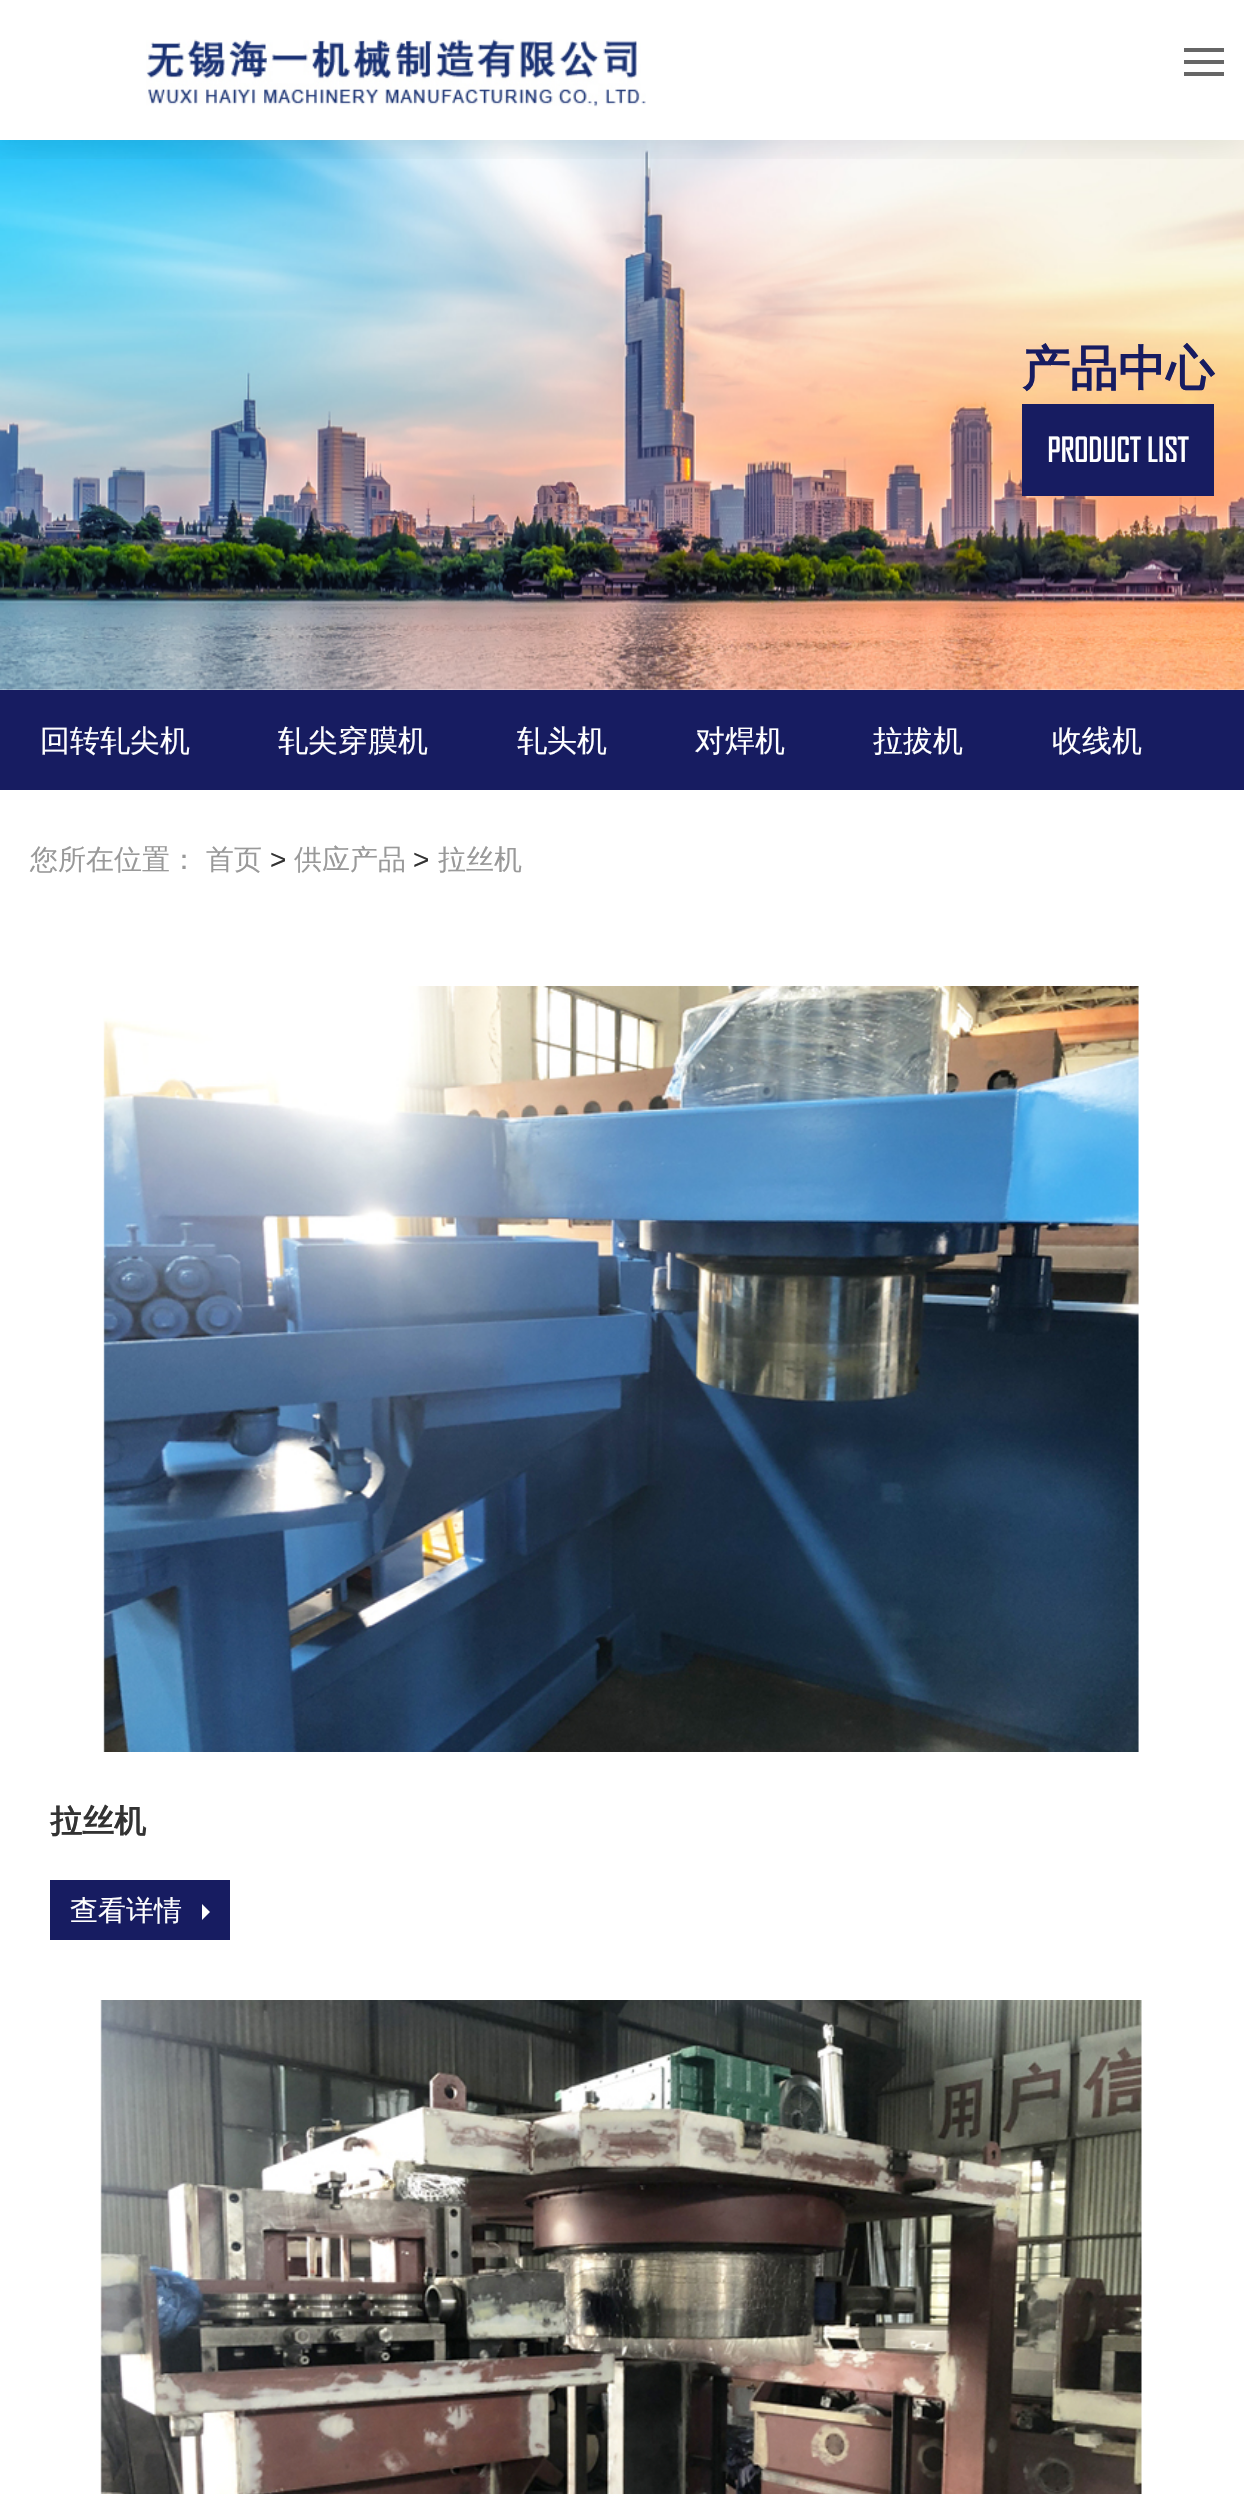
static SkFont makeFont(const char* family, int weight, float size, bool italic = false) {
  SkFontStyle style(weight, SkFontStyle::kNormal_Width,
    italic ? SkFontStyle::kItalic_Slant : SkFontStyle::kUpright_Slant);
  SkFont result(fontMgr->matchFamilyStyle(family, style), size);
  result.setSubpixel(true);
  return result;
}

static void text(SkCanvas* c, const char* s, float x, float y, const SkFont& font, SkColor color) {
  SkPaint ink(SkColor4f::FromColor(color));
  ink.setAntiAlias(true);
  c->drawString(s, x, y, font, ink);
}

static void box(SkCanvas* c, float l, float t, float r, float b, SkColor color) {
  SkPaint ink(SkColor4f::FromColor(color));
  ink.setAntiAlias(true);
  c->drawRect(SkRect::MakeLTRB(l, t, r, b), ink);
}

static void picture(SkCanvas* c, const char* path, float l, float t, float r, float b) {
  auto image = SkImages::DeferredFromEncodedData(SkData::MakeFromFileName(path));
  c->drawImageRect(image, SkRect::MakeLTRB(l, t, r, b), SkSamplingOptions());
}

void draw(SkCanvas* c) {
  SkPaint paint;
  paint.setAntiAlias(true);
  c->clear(0xffffffff);
  picture(c, "img_02.png", 0, 140, 1244, 690);
  c->save();
  c->clipRect(SkRect::MakeLTRB(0, 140, 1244, 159));
  paint.setColor(0x1f000000);
  paint.setMaskFilter(SkMaskFilter::MakeBlur(kNormal_SkBlurStyle, 20));
  c->drawRect(SkRect::MakeLTRB(0, 0, 1244, 140), paint);
  paint.setMaskFilter(nullptr);
  c->restore();
  picture(c, "img_01.png", 146, 39, 646, 107);
  box(c, 1184, 48, 1224, 52, 0xff666666);
  box(c, 1184, 60, 1224, 64, 0xff666666);
  box(c, 1184, 72, 1224, 76, 0xff666666);
  SkFont face1 = makeFont("WenQuanYi Zen Hei", 700, 48);
  text(c, "产品中心", 1022, 385, face1, 0xff171c61);
  box(c, 1022, 404, 1214, 496, 0xff171c61);
  SkFont face2 = makeFont("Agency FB", 700, 32);
  text(c, "PRODUCT LIST", 1047, 462, face2, 0xffffffff);
  box(c, 0, 690, 1244, 790, 0xff171c61);
  SkFont face3 = makeFont("WenQuanYi Zen Hei", 500, 30);
  text(c, "回转轧尖机", 40, 751, face3, 0xffffffff);
  text(c, "轧尖穿膜机", 278, 751, face3, 0xffffffff);
  text(c, "轧头机", 517, 751, face3, 0xffffffff);
  text(c, "对焊机", 695, 751, face3, 0xffffffff);
  text(c, "拉拔机", 873, 751, face3, 0xffffffff);
  text(c, "收线机", 1052, 751, face3, 0xffffffff);
  SkFont face4 = makeFont("WenQuanYi Zen Hei", 500, 28);
  text(c, "您所在位置：", 30, 869, face4, 0xff999999);
  text(c, "首页", 206, 869, face4, 0xff999999);
  SkFont face5 = makeFont("Liberation Sans", 400, 28);
  text(c, ">", 270, 869, face5, 0xff333333);
  text(c, "供应产品", 294, 869, face4, 0xff999999);
  text(c, ">", 413, 869, face5, 0xff333333);
  text(c, "拉丝机", 438, 869, face4, 0xff999999);
  picture(c, "img_03.png", 103, 986, 1139, 1752);
  SkFont face6 = makeFont("WenQuanYi Zen Hei", 700, 32);
  text(c, "拉丝机", 50, 1832, face6, 0xff333333);
  box(c, 50, 1880, 230, 1940, 0xff171c61);
  text(c, "查看详情", 70, 1920, face4, 0xffffffff);
  paint.setColor(0xffffffff);
  c->drawPath(SkPathBuilder().moveTo(202, 1920).lineTo(202, 1904).lineTo(210, 1912).close().detach(), paint);
  picture(c, "img_04.png", 100, 2000, 1142, 2494);
}
